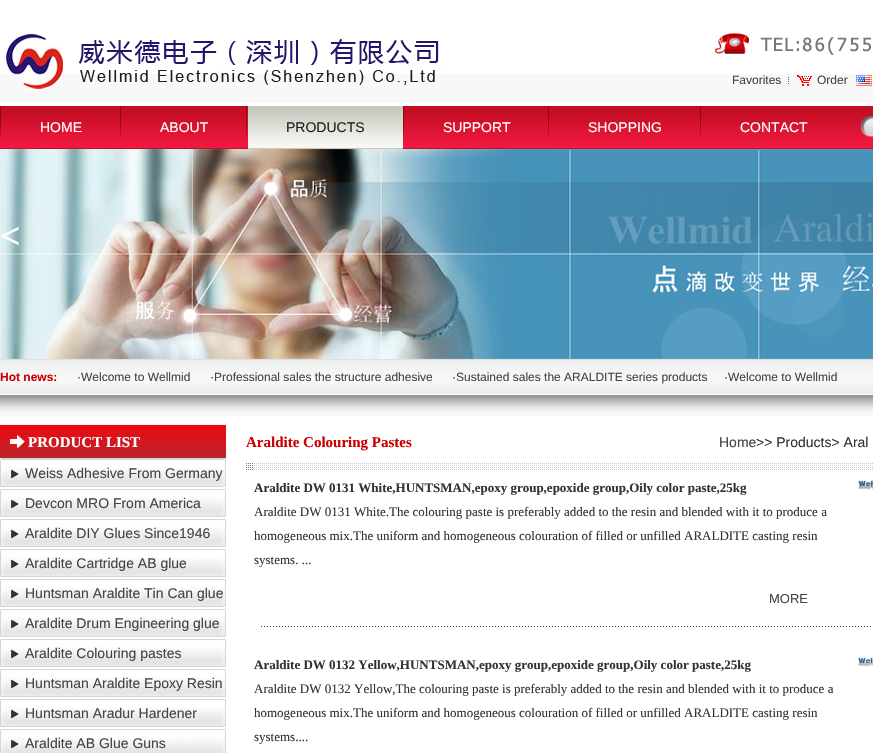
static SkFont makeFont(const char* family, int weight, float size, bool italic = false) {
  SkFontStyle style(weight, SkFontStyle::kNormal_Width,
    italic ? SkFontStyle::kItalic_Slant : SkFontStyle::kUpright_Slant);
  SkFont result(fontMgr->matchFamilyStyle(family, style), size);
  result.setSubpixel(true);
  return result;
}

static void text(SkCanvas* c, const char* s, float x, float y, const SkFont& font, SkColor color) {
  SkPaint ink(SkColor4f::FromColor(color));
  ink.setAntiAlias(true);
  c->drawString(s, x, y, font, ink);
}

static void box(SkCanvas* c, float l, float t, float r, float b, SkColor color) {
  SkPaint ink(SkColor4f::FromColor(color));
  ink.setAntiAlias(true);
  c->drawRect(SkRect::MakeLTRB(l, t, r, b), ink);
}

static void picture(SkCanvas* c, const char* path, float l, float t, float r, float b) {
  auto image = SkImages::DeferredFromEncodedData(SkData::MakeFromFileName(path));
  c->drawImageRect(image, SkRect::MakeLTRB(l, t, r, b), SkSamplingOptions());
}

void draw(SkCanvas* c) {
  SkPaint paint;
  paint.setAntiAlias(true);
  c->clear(0xffefefef);
  box(c, 0, 0, 873, 106, 0xffffffff);
  box(c, 0, 74, 873, 103, 0xfff8f8f8);
  picture(c, "img_01.png", 3, 29, 445, 91);
  picture(c, "img_02.png", 715, 33, 871, 55);
  picture(c, "img_03.png", 788, 77, 789, 84);
  SkFont face1 = makeFont("Liberation Sans", 400, 12);
  text(c, "Favorites", 732, 84, face1, 0xff444444);
  picture(c, "img_04.png", 797, 75, 812, 86);
  text(c, "Order", 817, 84, face1, 0xff444444);
  picture(c, "img_05.png", 856, 75, 872, 86);
  picture(c, "img_06.png", 0, 106, 873, 149);
  picture(c, "img_07.png", 0, 106, 1, 140);
  SkFont face2 = makeFont("Liberation Sans", 400, 14);
  text(c, "HOME", 40, 132, face2, 0xffffffff);
  picture(c, "img_07.png", 120, 106, 121, 140);
  text(c, "ABOUT", 160, 132, face2, 0xffffffff);
  picture(c, "img_07.png", 246, 106, 247, 140);
  picture(c, "img_08.png", 248, 106, 403, 149);
  text(c, "PRODUCTS", 286, 132, face2, 0xff222222);
  picture(c, "img_07.png", 403, 106, 404, 140);
  text(c, "SUPPORT", 443, 132, face2, 0xffffffff);
  picture(c, "img_07.png", 548, 106, 549, 140);
  text(c, "SHOPPING", 588, 132, face2, 0xffffffff);
  picture(c, "img_07.png", 700, 106, 701, 140);
  text(c, "CONTACT", 740, 132, face2, 0xffffffff);
  picture(c, "img_09.png", 861, 116, 873, 138);
  picture(c, "img_10.png", 1, 149, 873, 359);
  SkFont face3 = makeFont("Liberation Serif", 700, 36);
  text(c, "<", 0, 248, face3, 0xffffffff);
  picture(c, "img_11.png", 0, 359, 873, 395);
  SkFont face4 = makeFont("Liberation Sans", 700, 12);
  text(c, "Hot news:", 0, 381, face4, 0xffcc0000);
  text(c, "·Welcome to Wellmid", 77, 381, face1, 0xff444444);
  text(c, "·Professional sales the structure adhesive", 210, 381, face1, 0xff444444);
  text(c, "·Sustained sales the ARALDITE series products", 452, 381, face1, 0xff444444);
  text(c, "·Welcome to Wellmid", 724, 381, face1, 0xff444444);
  box(c, 0, 416, 873, 753, 0xffffffff);
  picture(c, "img_12.png", 0, 395, 873, 416);
  picture(c, "img_13.png", 0, 424, 226, 459);
  SkFont face5 = makeFont("Liberation Serif", 700, 15);
  text(c, "PRODUCT LIST", 28, 447, face5, 0xffffffff);
  picture(c, "img_14.png", 0, 459, 226, 487);
  text(c, "Weiss Adhesive From Germany", 25, 478, face2, 0xff444444);
  picture(c, "img_14.png", 0, 489, 226, 517);
  text(c, "Devcon MRO From America", 25, 508, face2, 0xff444444);
  picture(c, "img_14.png", 0, 519, 226, 547);
  text(c, "Araldite DIY Glues Since1946", 25, 538, face2, 0xff444444);
  picture(c, "img_14.png", 0, 549, 226, 577);
  text(c, "Araldite Cartridge AB glue", 25, 568, face2, 0xff444444);
  picture(c, "img_14.png", 0, 579, 226, 607);
  text(c, "Huntsman Araldite Tin Can glue", 25, 598, face2, 0xff444444);
  picture(c, "img_14.png", 0, 609, 226, 637);
  text(c, "Araldite Drum Engineering glue", 25, 628, face2, 0xff444444);
  picture(c, "img_14.png", 0, 639, 226, 667);
  text(c, "Araldite Colouring pastes", 25, 658, face2, 0xff444444);
  picture(c, "img_14.png", 0, 669, 226, 697);
  text(c, "Huntsman Araldite Epoxy Resin", 25, 688, face2, 0xff444444);
  picture(c, "img_14.png", 0, 699, 226, 727);
  text(c, "Huntsman Aradur Hardener", 25, 718, face2, 0xff444444);
  picture(c, "img_15.png", 0, 729, 226, 753);
  text(c, "Araldite AB Glue Guns", 25, 748, face2, 0xff444444);
  picture(c, "img_16.png", 246, 463, 873, 470);
  text(c, "Araldite Colouring Pastes", 246, 447, face5, 0xffcc0000);
  text(c, "Home", 719, 447, face2, 0xff444444);
  text(c, ">> Products> Aral", 756, 447, face2, 0xff333333);
  SkFont face6 = makeFont("Liberation Serif", 700, 13);
  text(c, "Araldite DW 0131 White,HUNTSMAN,epoxy group,epoxide group,Oily color paste,25kg", 254, 492, face6, 0xff333333);
  SkFont face7 = makeFont("Liberation Serif", 400, 13);
  text(c, "Araldite DW 0131 White.The colouring paste is preferably added to the resin and blended with it to produce a", 254, 516, face7, 0xff333333);
  text(c, "homogeneous mix.The uniform and homogeneous colouration of filled or unfilled ARALDITE casting resin", 254, 540, face7, 0xff333333);
  text(c, "systems. ...", 254, 564, face7, 0xff333333);
  SkFont face8 = makeFont("Liberation Sans", 400, 13);
  text(c, "MORE", 769, 603, face8, 0xff444444);
  picture(c, "img_17.png", 858, 480, 873, 490);
  picture(c, "img_18.png", 261, 626, 871, 627);
  text(c, "Araldite DW 0132 Yellow,HUNTSMAN,epoxy group,epoxide group,Oily color paste,25kg", 254, 669, face6, 0xff333333);
  text(c, "Araldite DW 0132 Yellow,The colouring paste is preferably added to the resin and blended with it to produce a", 254, 693, face7, 0xff333333);
  text(c, "homogeneous mix.The uniform and homogeneous colouration of filled or unfilled ARALDITE casting resin", 254, 717, face7, 0xff333333);
  text(c, "systems....", 254, 741, face7, 0xff333333);
  picture(c, "img_19.png", 858, 657, 873, 667);
}
